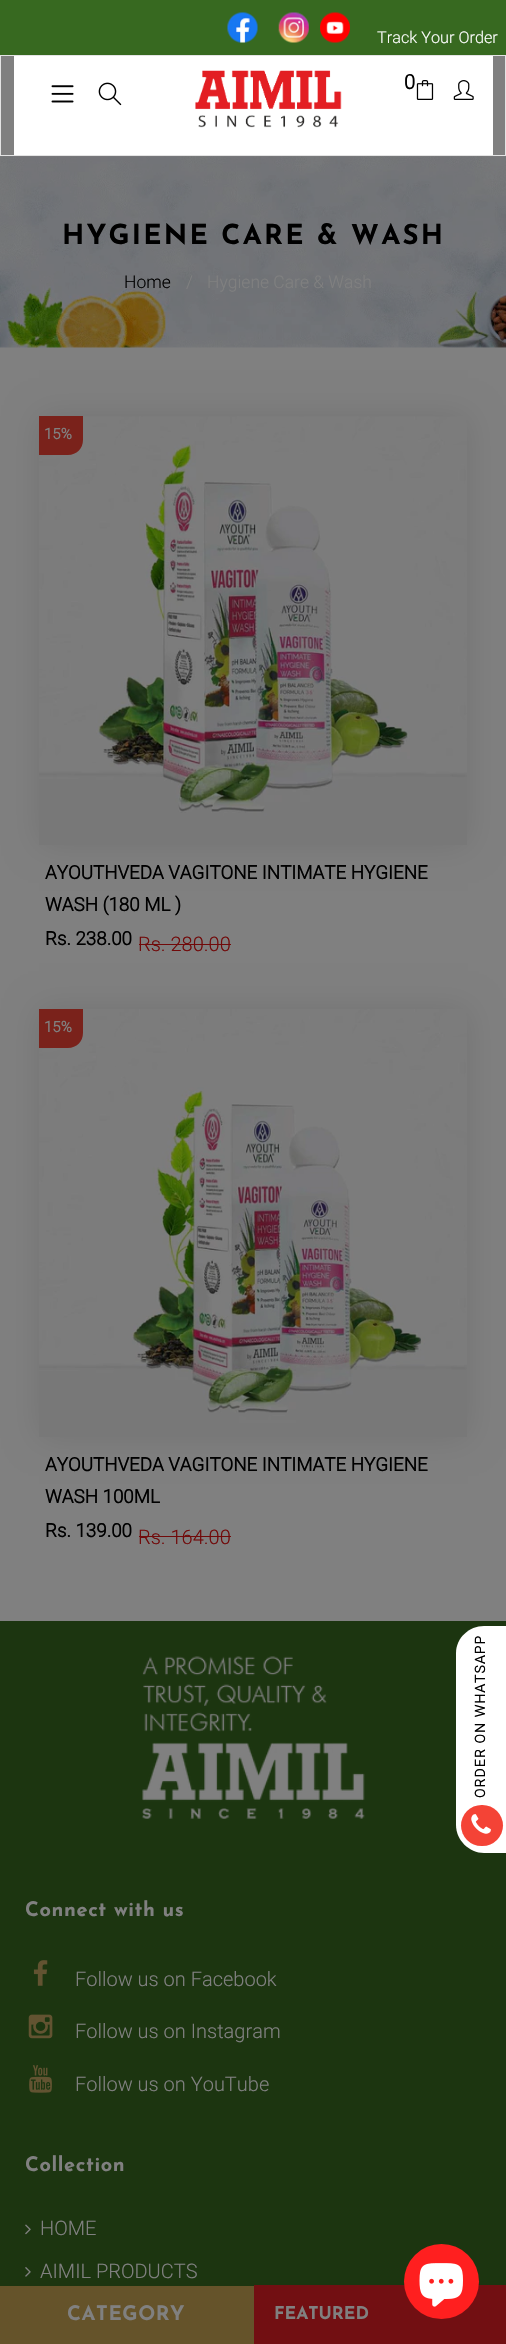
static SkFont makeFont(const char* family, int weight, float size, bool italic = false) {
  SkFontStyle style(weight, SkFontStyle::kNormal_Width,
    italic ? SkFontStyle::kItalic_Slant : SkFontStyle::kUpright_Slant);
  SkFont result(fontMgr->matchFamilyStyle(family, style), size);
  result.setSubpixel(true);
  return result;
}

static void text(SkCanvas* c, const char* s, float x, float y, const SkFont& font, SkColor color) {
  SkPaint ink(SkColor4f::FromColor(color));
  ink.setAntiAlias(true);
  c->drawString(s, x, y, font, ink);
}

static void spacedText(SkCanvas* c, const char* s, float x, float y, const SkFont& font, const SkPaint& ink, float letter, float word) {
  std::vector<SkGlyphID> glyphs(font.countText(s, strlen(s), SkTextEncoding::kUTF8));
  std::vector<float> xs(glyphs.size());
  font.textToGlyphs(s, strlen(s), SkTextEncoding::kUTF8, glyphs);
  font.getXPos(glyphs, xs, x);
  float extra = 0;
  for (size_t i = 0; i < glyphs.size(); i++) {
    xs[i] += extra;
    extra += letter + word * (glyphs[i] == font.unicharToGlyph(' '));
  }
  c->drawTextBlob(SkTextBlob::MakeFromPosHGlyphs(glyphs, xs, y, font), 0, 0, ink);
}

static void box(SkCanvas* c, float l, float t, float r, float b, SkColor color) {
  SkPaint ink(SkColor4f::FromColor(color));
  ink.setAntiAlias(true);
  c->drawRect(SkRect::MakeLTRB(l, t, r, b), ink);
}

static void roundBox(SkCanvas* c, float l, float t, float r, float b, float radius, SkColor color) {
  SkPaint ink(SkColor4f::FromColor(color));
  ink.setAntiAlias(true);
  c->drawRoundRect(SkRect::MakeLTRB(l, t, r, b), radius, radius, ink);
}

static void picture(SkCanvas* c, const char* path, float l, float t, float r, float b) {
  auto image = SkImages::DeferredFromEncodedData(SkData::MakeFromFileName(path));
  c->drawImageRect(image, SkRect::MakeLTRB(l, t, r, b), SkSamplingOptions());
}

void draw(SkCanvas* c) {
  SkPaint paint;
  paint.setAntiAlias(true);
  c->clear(0xff808080);
  box(c, 0, 0, 506, 55, 0xff376920);
  picture(c, "img_01.png", 227, 12, 258, 43);
  picture(c, "img_02.png", 278, 12, 309, 43);
  picture(c, "img_03.png", 320, 12, 350, 43);
  SkFont face1 = makeFont("Roboto", 300, 16.25f);
  text(c, "Track Your Order", 377, 43, face1, 0xffffffff);
  paint.setStyle(SkPaint::kStroke_Style);
  paint.setStrokeWidth(1);
  paint.setColor(0xffe4e4e4);
  c->drawRect(SkRect::MakeLTRB(0.5f, 55.5f, 505.5f, 155.5f), paint);
  box(c, 14, 56, 493, 155, 0xffffffff);
  picture(c, "img_04.png", 51, 85, 74, 103);
  picture(c, "img_05.png", 98, 82, 122, 106);
  picture(c, "img_06.png", 195, 70, 342, 128);
  SkFont face2 = makeFont("Roboto", 700, 20);
  text(c, "0", 404, 89, face2, 0xff000000);
  picture(c, "img_07.png", 416, 80, 434, 100);
  picture(c, "img_08.png", 453, 80, 474, 100);
  picture(c, "img_09.png", 0, 156, 506, 348);
  SkFont face3 = makeFont("Josefin Sans", 700, 27.5f);
  paint.setStyle(SkPaint::kFill_Style);
  paint.setColor(0xff000000);
  spacedText(c, "HYGIENE CARE & WASH", 62, 244, face3, paint, 2.25f, 0);
  SkFont face4 = makeFont("Roboto", 300, 17.5f);
  text(c, "Home", 124, 288, face4, 0xff000000);
  text(c, "/", 186, 288, face4, 0xff808080);
  text(c, "Hygiene Care & Wash", 207, 288, face4, 0xff808080);
  paint.setColor(0x1a000000);
  paint.setMaskFilter(SkMaskFilter::MakeBlur(kNormal_SkBlurStyle, 15.5f));
  c->drawRect(SkRect::MakeLTRB(39, 416, 468, 845), paint);
  paint.setMaskFilter(nullptr);
  picture(c, "img_10.png", 39, 416, 467, 845);
  paint.setColor(0xff7a221b);
  c->drawPath(SkPathBuilder().moveTo(39, 416).lineTo(83, 416).lineTo(83, 440).cubicTo(83, 448.5f, 76.5f, 455, 68, 455).lineTo(39, 455).close().detach(), paint);
  SkFont face5 = makeFont("Roboto", 700, 15);
  text(c, "15%", 44, 439, face5, 0xff808080);
  SkFont face6 = makeFont("Roboto", 700, 18.75f);
  text(c, "AYOUTHVEDA VAGITONE INTIMATE HYGIENE", 45, 879, face6, 0xff000000);
  text(c, "WASH (180 ML )", 45, 911, face6, 0xff000000);
  text(c, "Rs. 238.00", 45, 945, face6, 0xff000000);
  SkFont face7 = makeFont("Roboto", 300, 20);
  text(c, "Rs. 280.00", 138, 951, face7, 0xff710a0a);
  box(c, 139, 944, 231, 945, 0xff710a0a);
  paint.setColor(0x1a000000);
  paint.setMaskFilter(SkMaskFilter::MakeBlur(kNormal_SkBlurStyle, 15.5f));
  c->drawRect(SkRect::MakeLTRB(39, 1009, 468, 1438), paint);
  paint.setMaskFilter(nullptr);
  picture(c, "img_11.png", 39, 1009, 467, 1437);
  paint.setColor(0xff7a221b);
  c->drawPath(SkPathBuilder().moveTo(39, 1009).lineTo(83, 1009).lineTo(83, 1033).cubicTo(83, 1041.5f, 76.5f, 1048, 68, 1048).lineTo(39, 1048).close().detach(), paint);
  text(c, "15%", 44, 1032, face5, 0xff808080);
  text(c, "AYOUTHVEDA VAGITONE INTIMATE HYGIENE", 45, 1471, face6, 0xff000000);
  text(c, "WASH 100ML", 45, 1503, face6, 0xff000000);
  text(c, "Rs. 139.00", 45, 1537, face6, 0xff000000);
  text(c, "Rs. 164.00", 138, 1544, face7, 0xff710a0a);
  box(c, 139, 1536, 231, 1537, 0xff710a0a);
  box(c, 0, 1621, 506, 2286, 0xff1c3510);
  box(c, 254, 2285, 506, 2344, 0xff720f12);
  SkFont face8 = makeFont("Josefin Sans", 700, 17.5f);
  text(c, "FEATURED", 274, 2319, face8, 0xff808080);
  box(c, 0, 2286, 254, 2344, 0xff65532a);
  SkFont face9 = makeFont("Josefin Sans", 700, 20);
  paint.setColor(0xff808080);
  spacedText(c, "CATEGORY", 67, 2320, face9, paint, 0.6f, 0);
  paint.setColor(0xffffffff);
  c->drawPath(SkPathBuilder().moveTo(456, 1825).lineTo(456, 1653).cubicTo(456, 1638, 469, 1626, 484, 1626).lineTo(506, 1626).lineTo(506, 1853).lineTo(484, 1853).cubicTo(469, 1853, 456, 1840, 456, 1825).close().detach(), paint);
  SkFont face10 = makeFont("Roboto", 700, 13.75f);
  paint.setColor(0xff000000);
  c->save();
  c->rotate(-90, 485, 1798);
  spacedText(c, "ORDER ON WHATSAPP", 485, 1798, face10, paint, 1.25f, 0);
  c->restore();
  roundBox(c, 461, 1805, 503, 1846, 20.5f, 0xfff44336);
  picture(c, "img_12.png", 471, 1814, 491, 1834);
  picture(c, "img_13.png", 142, 1656, 365, 1819);
  paint.setColor(0xff808080);
  spacedText(c, "Connect with us", 25, 1916, face9, paint, 0.6f, 0);
  picture(c, "img_14.png", 33, 1960, 48, 1986);
  text(c, "Follow us on Facebook", 75, 1986, face7, 0xff808080);
  picture(c, "img_15.png", 28, 2014, 53, 2039);
  text(c, "Follow us on Instagram", 75, 2038, face7, 0xff808080);
  picture(c, "img_16.png", 29, 2065, 52, 2093);
  text(c, "Follow us on YouTube", 75, 2091, face7, 0xff808080);
  spacedText(c, "Collection", 25, 2171, face9, paint, 0.6f, 0);
  picture(c, "img_17.png", 25, 2224, 31, 2235);
  text(c, "HOME", 40, 2235, face7, 0xff808080);
  picture(c, "img_18.png", 25, 2267, 31, 2277);
  text(c, "AIMIL PRODUCTS", 40, 2278, face7, 0xff808080);
  paint.setColor(0xffff1f1f);
  c->drawCircle(441.5f, 2281.5f, 37.5f, paint);
  picture(c, "img_19.png", 419, 2263, 463, 2307);
}
